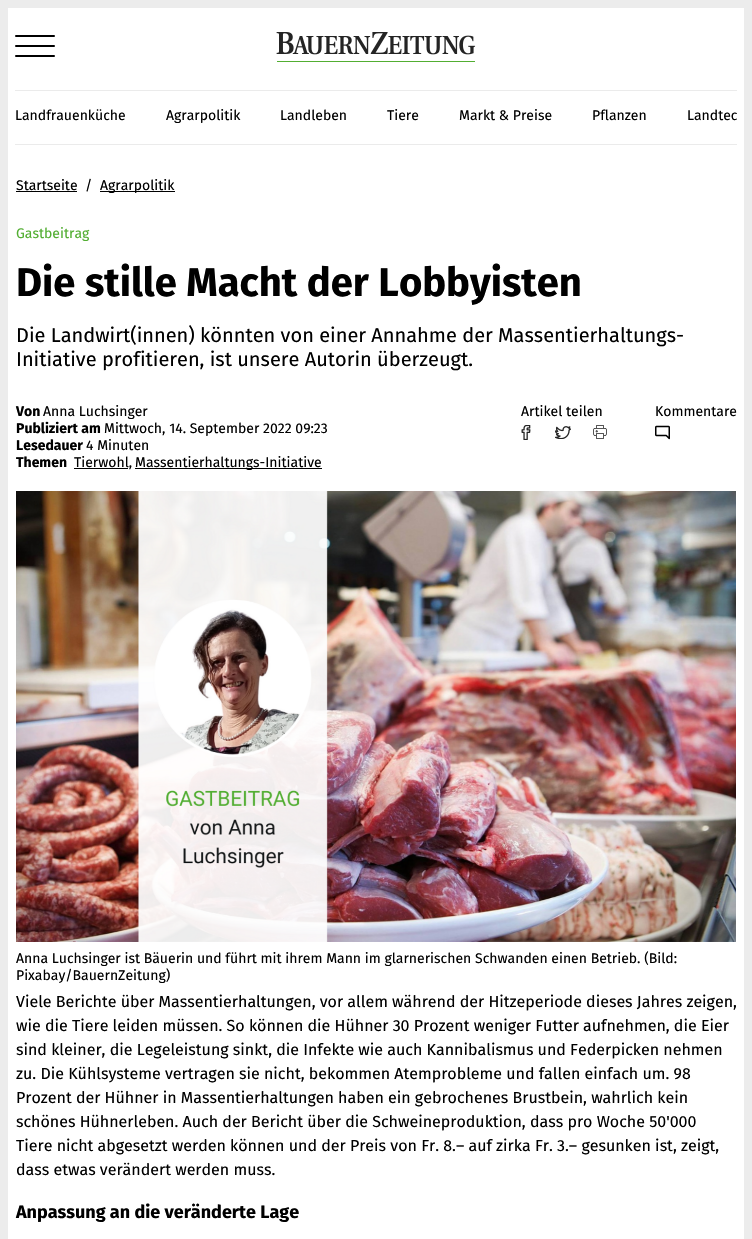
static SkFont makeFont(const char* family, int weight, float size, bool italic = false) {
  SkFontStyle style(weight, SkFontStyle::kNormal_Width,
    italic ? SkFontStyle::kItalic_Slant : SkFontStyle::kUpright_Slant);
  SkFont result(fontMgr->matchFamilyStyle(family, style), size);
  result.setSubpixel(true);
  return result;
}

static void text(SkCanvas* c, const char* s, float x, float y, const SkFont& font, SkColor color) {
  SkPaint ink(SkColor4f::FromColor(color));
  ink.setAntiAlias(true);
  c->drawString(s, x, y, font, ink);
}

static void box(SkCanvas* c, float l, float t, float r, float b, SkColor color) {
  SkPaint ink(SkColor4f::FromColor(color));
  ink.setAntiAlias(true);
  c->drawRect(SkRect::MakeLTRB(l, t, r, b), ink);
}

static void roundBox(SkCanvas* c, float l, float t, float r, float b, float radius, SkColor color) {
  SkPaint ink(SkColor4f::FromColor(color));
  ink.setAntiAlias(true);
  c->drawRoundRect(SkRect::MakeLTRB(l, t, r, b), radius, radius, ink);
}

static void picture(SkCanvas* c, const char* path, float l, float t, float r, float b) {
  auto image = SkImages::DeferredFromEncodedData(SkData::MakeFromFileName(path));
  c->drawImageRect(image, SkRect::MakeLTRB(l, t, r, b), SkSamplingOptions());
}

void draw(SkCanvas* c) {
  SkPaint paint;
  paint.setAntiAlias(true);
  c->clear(0xffececec);
  box(c, 8, 8, 744, 1239, 0xffffffff);
  roundBox(c, 15, 45, 55, 47, 1, 0xff000000);
  roundBox(c, 15, 35, 55, 37, 1, 0xff000000);
  roundBox(c, 15, 55, 55, 57, 1, 0xff000000);
  picture(c, "img_01.png", 276, 32, 476, 62);
  box(c, 15, 90, 737, 91, 0xffebebeb);
  box(c, 15, 144, 737, 145, 0xffebebeb);
  SkFont face1 = makeFont("Fira Sans", 400, 14);
  text(c, "Landfrauenküche", 15, 120, face1, 0xff000000);
  text(c, "Agrarpolitik", 166, 120, face1, 0xff000000);
  text(c, "Landleben", 280, 120, face1, 0xff000000);
  text(c, "Tiere", 387, 120, face1, 0xff000000);
  text(c, "Markt & Preise", 459, 120, face1, 0xff000000);
  text(c, "Pflanzen", 592, 120, face1, 0xff000000);
  text(c, "Landtec", 687, 120, face1, 0xff000000);
  text(c, "Startseite", 16, 190, face1, 0xff000000);
  box(c, 16, 191, 77, 192, 0xff000000);
  text(c, "/", 85, 190, face1, 0xff000000);
  box(c, 100, 191, 175, 192, 0xff000000);
  text(c, "Agrarpolitik", 100, 190, face1, 0xff000000);
  text(c, "Gastbeitrag", 16, 238, face1, 0xff52ae32);
  SkFont face2 = makeFont("Fira Sans", 700, 40);
  text(c, "Die stille Macht der Lobbyisten", 16, 296, face2, 0xff000000);
  SkFont face3 = makeFont("Fira Sans", 400, 20);
  text(c, "Die Landwirt(innen) könnten von einer Annahme der Massentierhaltungs-", 16, 342, face3, 0xff000000);
  text(c, "Initiative profitieren, ist unsere Autorin überzeugt.", 16, 366, face3, 0xff000000);
  SkFont face4 = makeFont("Fira Sans", 700, 14);
  text(c, "Von", 16, 416, face4, 0xff000000);
  text(c, "Anna Luchsinger", 43, 416, face1, 0xff000000);
  text(c, "Publiziert am", 16, 433, face4, 0xff000000);
  text(c, "Mittwoch, 14. September 2022 09:23", 104, 433, face1, 0xff000000);
  text(c, "Lesedauer", 16, 450, face4, 0xff000000);
  text(c, "4 Minuten", 86, 450, face1, 0xff000000);
  text(c, "Themen", 16, 467, face4, 0xff000000);
  box(c, 74, 468, 128, 469, 0xff000000);
  text(c, "Tierwohl,", 74, 467, face1, 0xff000000);
  box(c, 135, 468, 322, 469, 0xff000000);
  text(c, "Massentierhaltungs-Initiative", 135, 467, face1, 0xff000000);
  text(c, "Artikel teilen", 521, 416, face1, 0xff000000);
  picture(c, "img_02.png", 521, 425, 531, 440);
  picture(c, "img_03.png", 555, 426, 571, 439);
  picture(c, "img_04.png", 593, 425, 607, 439);
  text(c, "Kommentare", 655, 416, face1, 0xff000000);
  picture(c, "img_05.png", 655, 425, 670, 440);
  picture(c, "img_06.png", 16, 491, 736, 942);
  text(c, "Anna Luchsinger ist Bäuerin und führt mit ihrem Mann im glarnerischen Schwanden einen Betrieb. (Bild:", 16, 963, face1, 0xff000000);
  text(c, "Pixabay/BauernZeitung)", 16, 980, face1, 0xff000000);
  SkFont face5 = makeFont("Fira Sans", 400, 16);
  text(c, "Viele Berichte über Massentierhaltungen, vor allem während der Hitzeperiode dieses Jahres zeigen,", 16, 1007, face5, 0xff000000);
  text(c, "wie die Tiere leiden müssen. So können die Hühner 30 Prozent weniger Futter aufnehmen, die Eier", 16, 1031, face5, 0xff000000);
  text(c, "sind kleiner, die Legeleistung sinkt, die Infekte wie auch Kannibalismus und Federpicken nehmen", 16, 1055, face5, 0xff000000);
  text(c, "zu. Die Kühlsysteme vertragen sie nicht, bekommen Atemprobleme und fallen einfach um. 98", 16, 1079, face5, 0xff000000);
  text(c, "Prozent der Hühner in Massentierhaltungen haben ein gebrochenes Brustbein, wahrlich kein", 16, 1103, face5, 0xff000000);
  text(c, "schönes Hühnerleben. Auch der Bericht über die Schweineproduktion, dass pro Woche 50'000", 16, 1127, face5, 0xff000000);
  text(c, "Tiere nicht abgesetzt werden können und der Preis von Fr. 8.– auf zirka Fr. 3.– gesunken ist, zeigt,", 16, 1151, face5, 0xff000000);
  text(c, "dass etwas verändert werden muss.", 16, 1175, face5, 0xff000000);
  SkFont face6 = makeFont("Fira Sans", 700, 18);
  text(c, "Anpassung an die veränderte Lage", 16, 1218, face6, 0xff000000);
}
